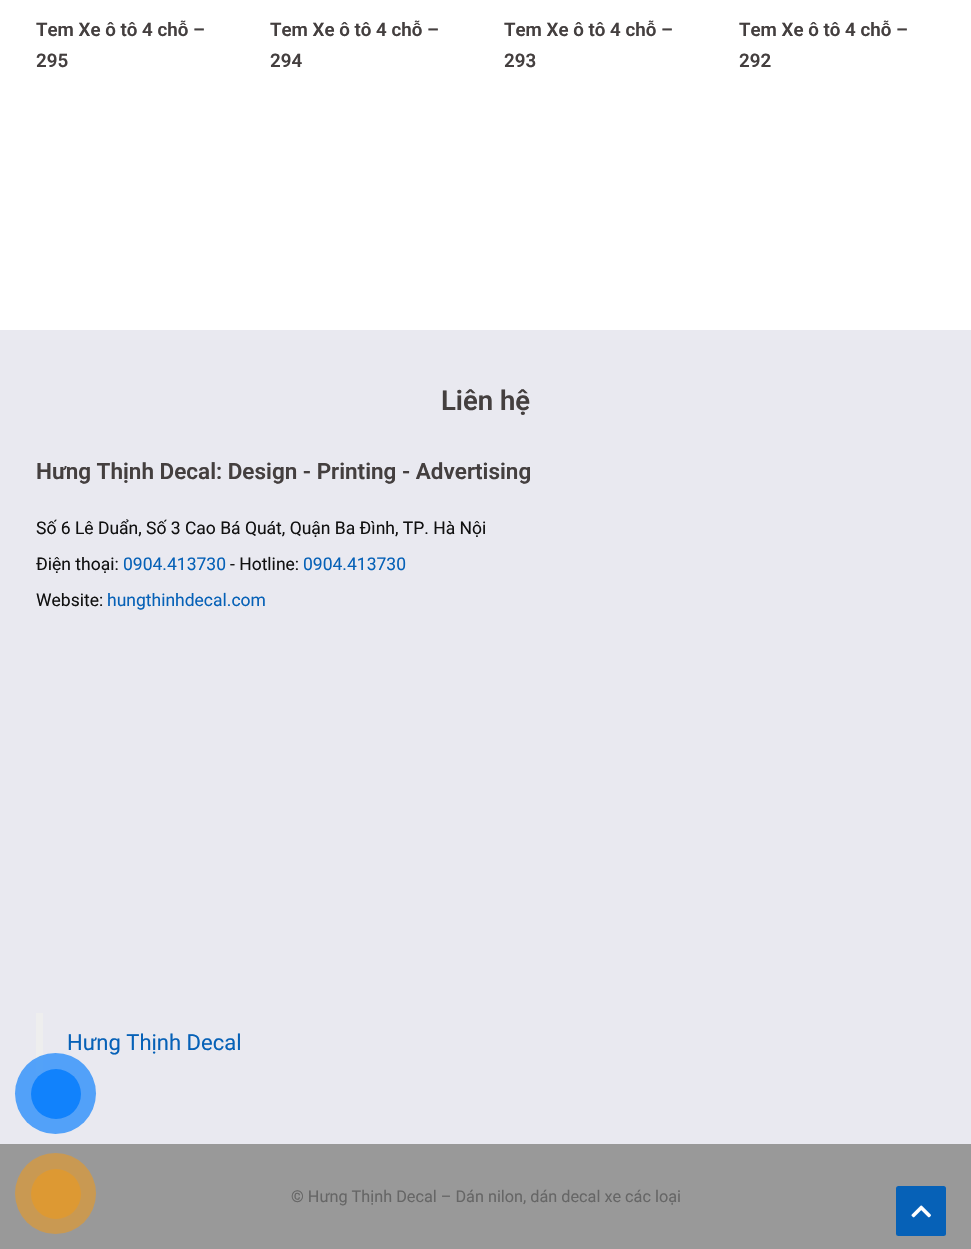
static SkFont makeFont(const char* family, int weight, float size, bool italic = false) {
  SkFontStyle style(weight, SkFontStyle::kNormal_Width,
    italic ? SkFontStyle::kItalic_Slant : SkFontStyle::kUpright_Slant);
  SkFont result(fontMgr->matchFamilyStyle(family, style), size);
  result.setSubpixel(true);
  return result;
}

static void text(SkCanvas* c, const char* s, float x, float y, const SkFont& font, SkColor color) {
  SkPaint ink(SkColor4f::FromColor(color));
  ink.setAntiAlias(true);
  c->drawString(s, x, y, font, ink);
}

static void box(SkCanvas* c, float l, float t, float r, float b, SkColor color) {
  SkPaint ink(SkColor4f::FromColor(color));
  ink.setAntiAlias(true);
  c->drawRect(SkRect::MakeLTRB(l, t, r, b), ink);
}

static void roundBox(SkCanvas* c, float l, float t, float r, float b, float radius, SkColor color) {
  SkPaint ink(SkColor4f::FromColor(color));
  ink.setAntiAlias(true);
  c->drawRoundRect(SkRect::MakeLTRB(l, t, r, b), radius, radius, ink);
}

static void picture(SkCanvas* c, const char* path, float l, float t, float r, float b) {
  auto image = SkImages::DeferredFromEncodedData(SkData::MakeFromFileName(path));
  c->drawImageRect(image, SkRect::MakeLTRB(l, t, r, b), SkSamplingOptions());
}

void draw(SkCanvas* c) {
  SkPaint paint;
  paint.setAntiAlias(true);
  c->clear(0xffffffff);
  SkFont face1 = makeFont("Roboto", 600, 18.75f);
  text(c, "Tem Xe ô tô 4 chỗ –", 36, 36, face1, 0xff443f3f);
  text(c, "295", 36, 67, face1, 0xff443f3f);
  text(c, "Tem Xe ô tô 4 chỗ –", 270, 36, face1, 0xff443f3f);
  text(c, "294", 270, 67, face1, 0xff443f3f);
  text(c, "Tem Xe ô tô 4 chỗ –", 504, 36, face1, 0xff443f3f);
  text(c, "293", 504, 67, face1, 0xff443f3f);
  text(c, "Tem Xe ô tô 4 chỗ –", 739, 36, face1, 0xff443f3f);
  text(c, "292", 739, 67, face1, 0xff443f3f);
  box(c, 0, 330, 971, 1144, 0xffe9e9f0);
  SkFont face2 = makeFont("Roboto", 600, 27.5f);
  text(c, "Liên hệ", 441, 410, face2, 0xff443f3f);
  SkFont face3 = makeFont("Roboto", 600, 22.5f);
  text(c, "Hưng Thịnh Decal: Design - Printing - Advertising", 36, 479, face3, 0xff443f3f);
  SkFont face4 = makeFont("Roboto", 400, 17.5f);
  text(c, "Số 6 Lê Duẩn, Số 3 Cao Bá Quát, Quận Ba Đình, TP. Hà Nội", 36, 534, face4, 0xff111111);
  text(c, "Điện thoại:", 36, 570, face4, 0xff111111);
  text(c, "0904.413730", 123, 570, face4, 0xff0661b7);
  text(c, "- Hotline:", 230, 570, face4, 0xff111111);
  text(c, "0904.413730", 303, 570, face4, 0xff0661b7);
  text(c, "Website:", 36, 606, face4, 0xff111111);
  text(c, "hungthinhdecal.com", 107, 606, face4, 0xff0661b7);
  box(c, 36, 1013, 43, 1075, 0xffeeeeee);
  SkFont face5 = makeFont("Roboto", 400, 22);
  text(c, "Hưng Thịnh Decal", 67, 1050, face5, 0xff0661b7);
  box(c, 0, 1144, 971, 1249, 0xff999999);
  SkFont face6 = makeFont("Roboto", 400, 16.25f);
  text(c, "© Hưng Thịnh Decal – Dán nilon, dán decal xe các loại", 291, 1202, face6, 0xff666666);
  roundBox(c, 896, 1186, 946, 1236, 2.5f, 0xff0661b7);
  picture(c, "img_01.png", 911, 1205, 931, 1218);
  paint.setColor(0xb31182fc);
  c->drawCircle(55.5f, 1093.5f, 40.5f, paint);
  paint.setColor(0xff1182fc);
  c->drawCircle(56, 1094, 25, paint);
  paint.setColor(0xffc99952);
  c->drawCircle(55.5f, 1193.5f, 40.5f, paint);
  paint.setColor(0xffdd9933);
  c->drawCircle(56, 1194, 25, paint);
}
